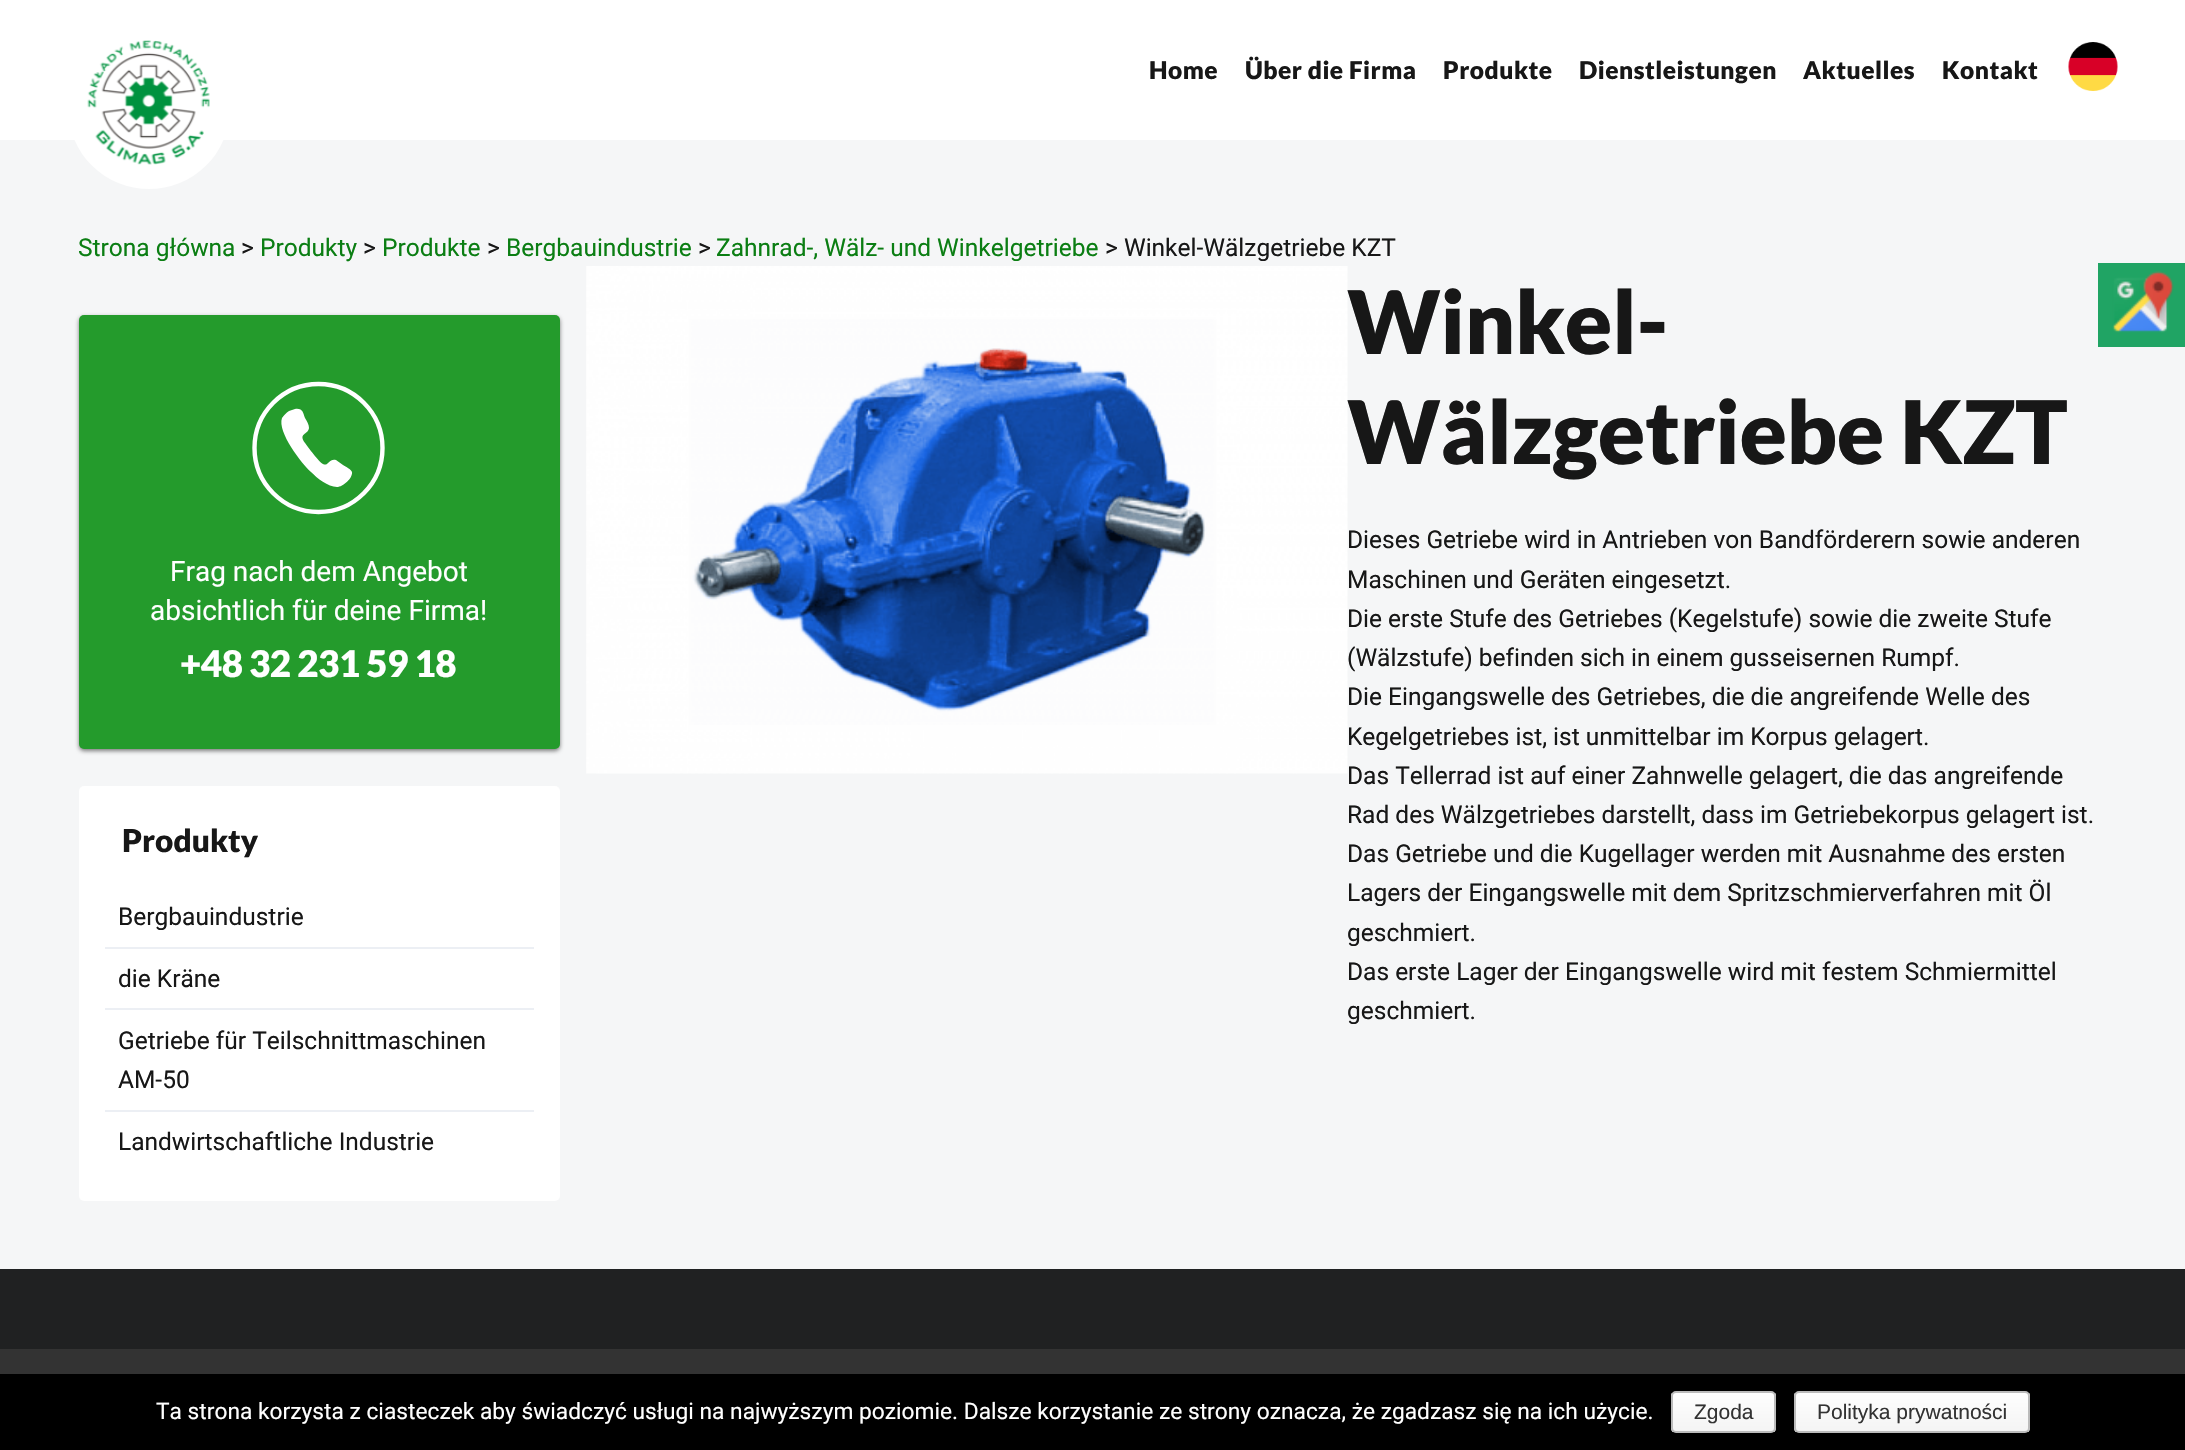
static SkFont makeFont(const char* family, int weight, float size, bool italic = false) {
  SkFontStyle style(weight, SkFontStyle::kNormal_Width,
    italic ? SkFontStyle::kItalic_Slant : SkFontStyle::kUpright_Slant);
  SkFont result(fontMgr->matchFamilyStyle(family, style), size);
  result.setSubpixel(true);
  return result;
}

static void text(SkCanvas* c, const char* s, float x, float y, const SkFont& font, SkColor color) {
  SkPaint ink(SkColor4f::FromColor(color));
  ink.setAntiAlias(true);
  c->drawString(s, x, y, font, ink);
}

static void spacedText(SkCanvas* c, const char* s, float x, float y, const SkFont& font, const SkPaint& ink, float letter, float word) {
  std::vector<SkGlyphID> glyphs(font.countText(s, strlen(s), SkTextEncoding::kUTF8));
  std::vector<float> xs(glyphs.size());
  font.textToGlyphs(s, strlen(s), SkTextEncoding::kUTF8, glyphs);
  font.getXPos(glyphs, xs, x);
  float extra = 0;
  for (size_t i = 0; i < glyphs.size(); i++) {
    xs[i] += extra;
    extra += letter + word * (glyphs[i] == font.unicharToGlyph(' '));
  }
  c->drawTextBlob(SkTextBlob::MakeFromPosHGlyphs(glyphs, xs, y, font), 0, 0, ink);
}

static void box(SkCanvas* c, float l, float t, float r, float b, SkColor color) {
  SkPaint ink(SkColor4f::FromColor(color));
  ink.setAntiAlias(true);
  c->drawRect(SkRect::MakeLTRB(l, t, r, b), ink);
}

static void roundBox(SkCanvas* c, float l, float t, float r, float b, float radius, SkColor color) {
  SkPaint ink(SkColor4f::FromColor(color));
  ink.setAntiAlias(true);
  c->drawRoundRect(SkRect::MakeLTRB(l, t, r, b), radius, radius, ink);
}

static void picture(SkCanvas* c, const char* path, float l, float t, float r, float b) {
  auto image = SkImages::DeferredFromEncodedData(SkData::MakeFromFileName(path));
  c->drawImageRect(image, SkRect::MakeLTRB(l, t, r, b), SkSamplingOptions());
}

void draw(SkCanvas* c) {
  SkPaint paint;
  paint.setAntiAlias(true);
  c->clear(0xff202122);
  box(c, 0, 0, 2185, 140, 0xffffffff);
  box(c, 0, 140, 2185, 1269, 0xfff5f6f7);
  paint.setColor(0xffffffff);
  c->drawOval(SkRect::MakeLTRB(68.5f, 31, 229.5f, 189), paint);
  picture(c, "img_01.png", 87, 40, 210, 165);
  SkFont face1 = makeFont("Lato", 900, 24.5f);
  paint.setColor(0xff171717);
  spacedText(c, "Home", 1149, 79, face1, paint, 0.5f, 0);
  spacedText(c, "Über die Firma", 1245, 79, face1, paint, 0.5f, 0);
  spacedText(c, "Produkte", 1443, 79, face1, paint, 0.5f, 0);
  spacedText(c, "Dienstleistungen", 1579, 79, face1, paint, 0.5f, 0);
  spacedText(c, "Aktuelles", 1803, 79, face1, paint, 0.5f, 0);
  spacedText(c, "Kontakt", 1942, 79, face1, paint, 0.5f, 0);
  picture(c, "img_02.png", 2068, 42, 2118, 91);
  SkFont face2 = makeFont("Roboto", 400, 24.5f);
  text(c, "Strona główna", 78, 256, face2, 0xff0b7e13);
  text(c, ">", 241, 256, face2, 0xff171717);
  text(c, "Produkty", 260, 256, face2, 0xff0b7e13);
  text(c, ">", 363, 256, face2, 0xff171717);
  text(c, "Produkte", 382, 256, face2, 0xff0b7e13);
  text(c, ">", 487, 256, face2, 0xff171717);
  text(c, "Bergbauindustrie", 506, 256, face2, 0xff0b7e13);
  text(c, ">", 698, 256, face2, 0xff171717);
  text(c, "Zahnrad-, Wälz- und Winkelgetriebe", 716, 256, face2, 0xff0b7e13);
  text(c, "> Winkel-Wälzgetriebe KZT", 1105, 256, face2, 0xff171717);
  paint.setColor(0x80000000);
  paint.setMaskFilter(SkMaskFilter::MakeBlur(kNormal_SkBlurStyle, 2));
  c->drawRoundRect(SkRect::MakeLTRB(79, 317, 560, 751), 5, 5, paint);
  paint.setMaskFilter(nullptr);
  roundBox(c, 79, 315, 560, 749, 5, 0xff249b2c);
  paint.setColor(0xffffffff);
  c->drawPath(SkPathBuilder().moveTo(337, 487).cubicTo(328, 487, 317, 478, 311, 472).cubicTo(302, 464, 277, 432, 282, 418).cubicTo(284, 415, 286, 413, 289, 411).lineTo(295, 409).cubicTo(303, 408, 303, 413, 305, 418).cubicTo(307, 421, 309, 425, 309, 428).cubicTo(308, 435, 298, 433, 305, 443).cubicTo(308, 447, 319, 462, 323, 464).cubicTo(328, 467, 329, 458, 336, 460).lineTo(343, 465).cubicTo(346, 467, 351, 469, 352, 472).cubicTo(353, 478, 343, 487, 337, 487).close().detach(), paint);
  paint.setStyle(SkPaint::kStroke_Style);
  paint.setStrokeWidth(4.4f);
  c->drawCircle(318.5f, 448, 64, paint);
  SkFont face3 = makeFont("Roboto", 400, 28);
  text(c, "Frag nach dem Angebot", 170, 581, face3, 0xffffffff);
  text(c, "absichtlich für deine Firma!", 150, 620, face3, 0xffffffff);
  SkFont face4 = makeFont("Lato", 900, 36.75f);
  paint.setStyle(SkPaint::kFill_Style);
  spacedText(c, "+48 32 231 59 18", 180, 677, face4, paint, -0.5f, 0);
  roundBox(c, 79, 786, 560, 1201, 5, 0xffffffff);
  SkFont face5 = makeFont("Lato", 900, 31.5f);
  text(c, "Produkty", 122, 852, face5, 0xff171717);
  box(c, 105, 947, 534, 949, 0xffeceff4);
  text(c, "Bergbauindustrie", 118, 925, face2, 0xff171717);
  box(c, 105, 1008, 534, 1010, 0xffeceff4);
  text(c, "die Kräne", 118, 987, face2, 0xff171717);
  box(c, 105, 1110, 534, 1112, 0xffeceff4);
  text(c, "Getriebe für Teilschnittmaschinen", 118, 1049, face2, 0xff171717);
  text(c, "AM-50", 118, 1088, face2, 0xff171717);
  text(c, "Landwirtschaftliche Industrie", 118, 1150, face2, 0xff171717);
  picture(c, "img_03.png", 586, 266, 1348, 774);
  SkFont face6 = makeFont("Lato", 900, 87.5f);
  paint.setColor(0xff171717);
  spacedText(c, "Winkel-", 1347, 354, face6, paint, -0.5f, 0);
  spacedText(c, "Wälzgetriebe KZT", 1347, 464, face6, paint, -0.5f, 0);
  text(c, "Dieses Getriebe wird in Antrieben von Bandförderern sowie anderen", 1347, 548, face2, 0xff171717);
  text(c, "Maschinen und Geräten eingesetzt.", 1347, 588, face2, 0xff171717);
  text(c, "Die erste Stufe des Getriebes (Kegelstufe) sowie die zweite Stufe", 1347, 627, face2, 0xff171717);
  text(c, "(Wälzstufe) befinden sich in einem gusseisernen Rumpf.", 1347, 666, face2, 0xff171717);
  text(c, "Die Eingangswelle des Getriebes, die die angreifende Welle des", 1347, 705, face2, 0xff171717);
  text(c, "Kegelgetriebes ist, ist unmittelbar im Korpus gelagert.", 1347, 745, face2, 0xff171717);
  text(c, "Das Tellerrad ist auf einer Zahnwelle gelagert, die das angreifende", 1347, 784, face2, 0xff171717);
  text(c, "Rad des Wälzgetriebes darstellt, dass im Getriebekorpus gelagert ist.", 1347, 823, face2, 0xff171717);
  text(c, "Das Getriebe und die Kugellager werden mit Ausnahme des ersten", 1347, 862, face2, 0xff171717);
  text(c, "Lagers der Eingangswelle mit dem Spritzschmierverfahren mit Öl", 1347, 901, face2, 0xff171717);
  text(c, "geschmiert.", 1347, 941, face2, 0xff171717);
  text(c, "Das erste Lager der Eingangswelle wird mit festem Schmiermittel", 1347, 980, face2, 0xff171717);
  text(c, "geschmiert.", 1347, 1019, face2, 0xff171717);
  box(c, 2098, 263, 2185, 347, 0xff20a464);
  picture(c, "img_04.png", 2112, 271, 2174, 333);
  box(c, 0, 1349, 2185, 1374, 0xff333333);
  box(c, 0, 1374, 2185, 1450, 0xff000000);
  SkFont face7 = makeFont("Roboto", 400, 22.75f);
  text(c, "Ta strona korzysta z ciasteczek aby świadczyć usługi na najwyższym poziomie. Dalsze korzystanie ze strony oznacza, że zgadzasz się na ich użycie.", 156, 1419, face7, 0xffffffff);
  c->save();
  c->clipPath(SkPathBuilder().moveTo(1676, 1391).lineTo(1771, 1391).cubicTo(1774, 1391, 1776, 1393, 1776, 1396).lineTo(1776, 1428).cubicTo(1776, 1431, 1774, 1433, 1771, 1433).lineTo(1676, 1433).cubicTo(1673, 1433, 1671, 1431, 1671, 1428).lineTo(1671, 1396).cubicTo(1671, 1393, 1673, 1391, 1676, 1391).close().detach(), true);
  {
    const SkColor colors[] = {0xfffefefe, 0xfff4f4f4};
    const float stops[] = {0, 1};
    const SkPoint ends[] = {{1724, 1393}, {1724, 1432}};
    paint.setShader(SkGradientShader::MakeLinear(ends, colors, stops, 2, SkTileMode::kClamp));
    paint.setAlpha(255);
  }
  c->drawRect(SkRect::MakeLTRB(1671, 1393, 1776, 1432), paint);
  c->restore();
  paint.setStyle(SkPaint::kStroke_Style);
  paint.setStrokeWidth(2);
  paint.setShader(nullptr);
  paint.setColor(0xffbbbbbb);
  c->drawRoundRect(SkRect::MakeLTRB(1672, 1392, 1775, 1432), 4, 4, paint);
  SkFont face8 = makeFont("Liberation Sans", 400, 21);
  text(c, "Zgoda", 1694, 1419, face8, 0xff333333);
  c->save();
  c->clipPath(SkPathBuilder().moveTo(1799, 1391).lineTo(2025, 1391).cubicTo(2028, 1391, 2030, 1393, 2030, 1396).lineTo(2030, 1428).cubicTo(2030, 1431, 2028, 1433, 2025, 1433).lineTo(1799, 1433).cubicTo(1796, 1433, 1794, 1431, 1794, 1428).lineTo(1794, 1396).cubicTo(1794, 1393, 1796, 1391, 1799, 1391).close().detach(), true);
  paint.setStyle(SkPaint::kFill_Style);
  {
    const SkColor colors[] = {0xfffefefe, 0xfff4f4f4};
    const float stops[] = {0, 1};
    const SkPoint ends[] = {{1912, 1393}, {1912, 1432}};
    paint.setShader(SkGradientShader::MakeLinear(ends, colors, stops, 2, SkTileMode::kClamp));
    paint.setAlpha(255);
  }
  c->drawRect(SkRect::MakeLTRB(1794, 1393, 2030, 1432), paint);
  c->restore();
  paint.setStyle(SkPaint::kStroke_Style);
  paint.setShader(nullptr);
  paint.setColor(0xffbbbbbb);
  c->drawRoundRect(SkRect::MakeLTRB(1795, 1392, 2029, 1432), 4, 4, paint);
  text(c, "Polityka prywatności", 1817, 1419, face8, 0xff333333);
}
